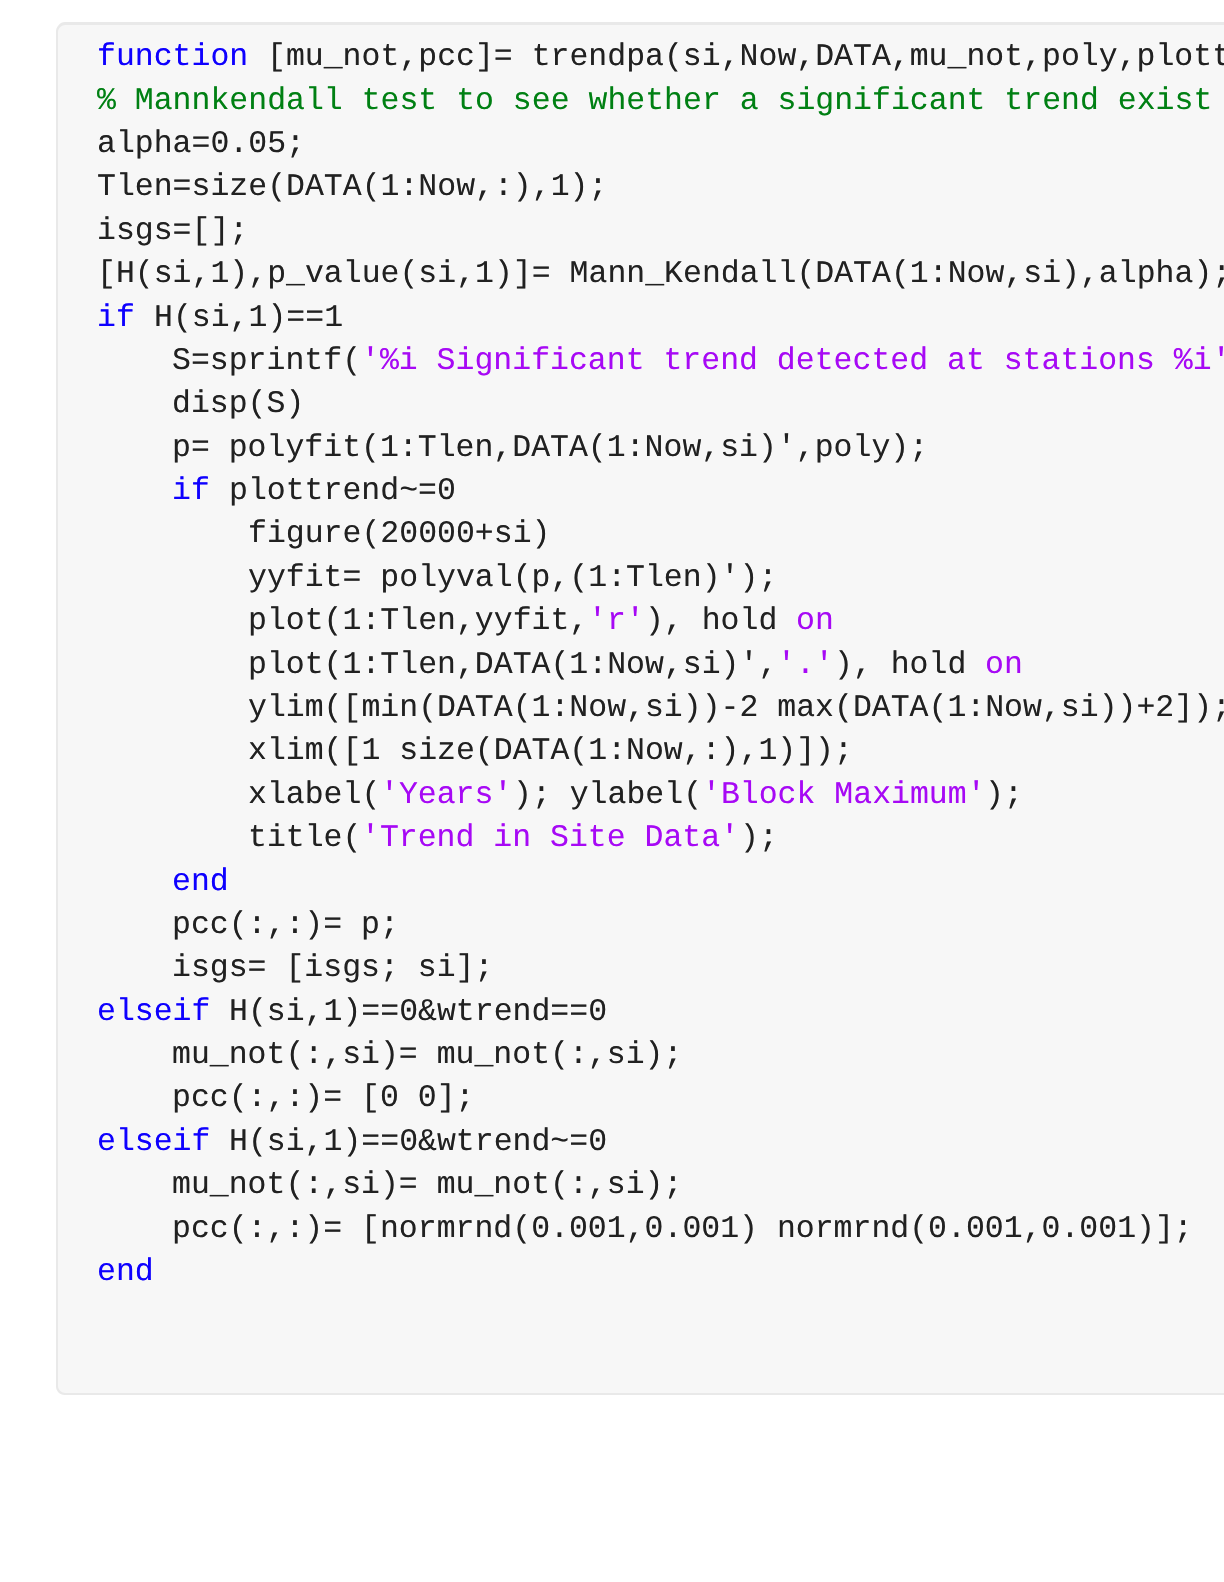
static SkFont makeFont(const char* family, int weight, float size, bool italic = false) {
  SkFontStyle style(weight, SkFontStyle::kNormal_Width,
    italic ? SkFontStyle::kItalic_Slant : SkFontStyle::kUpright_Slant);
  SkFont result(fontMgr->matchFamilyStyle(family, style), size);
  result.setSubpixel(true);
  return result;
}

static void text(SkCanvas* c, const char* s, float x, float y, const SkFont& font, SkColor color) {
  SkPaint ink(SkColor4f::FromColor(color));
  ink.setAntiAlias(true);
  c->drawString(s, x, y, font, ink);
}

static void box(SkCanvas* c, float l, float t, float r, float b, SkColor color) {
  SkPaint ink(SkColor4f::FromColor(color));
  ink.setAntiAlias(true);
  c->drawRect(SkRect::MakeLTRB(l, t, r, b), ink);
}

void draw(SkCanvas* c) {
  SkPaint paint;
  paint.setAntiAlias(true);
  c->clear(0xffffffff);
  paint.setColor(0xfff7f7f7);
  c->drawPath(SkPathBuilder().moveTo(65, 23).lineTo(1224, 23).lineTo(1224, 1395).lineTo(65, 1395).cubicTo(60, 1395, 56, 1391, 56, 1386).lineTo(56, 32).cubicTo(56, 27, 60, 23, 65, 23).close().detach(), paint);
  paint.setColor(0xffe9e9e9);
  c->drawPath(SkPathBuilder(SkPathFillType::kEvenOdd).moveTo(65, 22).lineTo(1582, 22).cubicTo(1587, 22, 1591, 27, 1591, 32).lineTo(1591, 79).lineTo(56, 79).lineTo(56, 32).cubicTo(56, 27, 60, 22, 65, 22).close().moveTo(65, 25).lineTo(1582, 25).cubicTo(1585, 25, 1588, 28, 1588, 32).lineTo(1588, 79).lineTo(58, 79).lineTo(58, 32).cubicTo(58, 28, 62, 25, 65, 25).close().detach(), paint);
  SkFont face1 = makeFont("Liberation Mono", 400, 31.5f);
  text(c, "function", 97, 65, face1, 0xff0e00ff);
  text(c, "[mu_not,pcc]= trendpa(si,Now,DATA,mu_not,poly,plott", 267, 65, face1, 0xff212121);
  box(c, 56, 79, 58, 1337, 0xffe9e9e9);
  text(c, "% Mannkendall test to see whether a significant trend exist", 97, 109, face1, 0xff008013);
  text(c, "alpha=0.05;", 97, 152, face1, 0xff212121);
  text(c, "Tlen=size(DATA(1:Now,:),1);", 97, 195, face1, 0xff212121);
  text(c, "isgs=[];", 97, 239, face1, 0xff212121);
  text(c, "[H(si,1),p_value(si,1)]= Mann_Kendall(DATA(1:Now,si),alpha);", 97, 282, face1, 0xff212121);
  text(c, "if", 97, 326, face1, 0xff0e00ff);
  text(c, "H(si,1)==1", 154, 326, face1, 0xff212121);
  text(c, "S=sprintf(", 172, 369, face1, 0xff212121);
  text(c, "'%i Significant trend detected at stations %i'", 361, 369, face1, 0xffa709f5);
  text(c, "disp(S)", 172, 412, face1, 0xff212121);
  text(c, "p= polyfit(1:Tlen,DATA(1:Now,si)',poly);", 172, 456, face1, 0xff212121);
  text(c, "if", 172, 499, face1, 0xff0e00ff);
  text(c, "plottrend~=0", 229, 499, face1, 0xff212121);
  text(c, "figure(20000+si)", 248, 542, face1, 0xff212121);
  text(c, "yyfit= polyval(p,(1:Tlen)');", 248, 586, face1, 0xff212121);
  text(c, "plot(1:Tlen,yyfit,", 248, 629, face1, 0xff212121);
  text(c, "'r'", 588, 629, face1, 0xffa709f5);
  text(c, "), hold", 645, 629, face1, 0xff212121);
  text(c, "on", 796, 629, face1, 0xffa709f5);
  text(c, "plot(1:Tlen,DATA(1:Now,si)',", 248, 673, face1, 0xff212121);
  text(c, "'.'", 777, 673, face1, 0xffa709f5);
  text(c, "), hold", 834, 673, face1, 0xff212121);
  text(c, "on", 985, 673, face1, 0xffa709f5);
  text(c, "ylim([min(DATA(1:Now,si))-2 max(DATA(1:Now,si))+2]);", 248, 716, face1, 0xff212121);
  text(c, "xlim([1 size(DATA(1:Now,:),1)]);", 248, 759, face1, 0xff212121);
  text(c, "xlabel(", 248, 803, face1, 0xff212121);
  text(c, "'Years'", 380, 803, face1, 0xffa709f5);
  text(c, "); ylabel(", 513, 803, face1, 0xff212121);
  text(c, "'Block Maximum'", 702, 803, face1, 0xffa709f5);
  text(c, ");", 985, 803, face1, 0xff212121);
  text(c, "title(", 248, 846, face1, 0xff212121);
  text(c, "'Trend in Site Data'", 361, 846, face1, 0xffa709f5);
  text(c, ");", 740, 846, face1, 0xff212121);
  text(c, "end", 172, 890, face1, 0xff0e00ff);
  text(c, "pcc(:,:)= p;", 172, 933, face1, 0xff212121);
  text(c, "isgs= [isgs; si];", 172, 976, face1, 0xff212121);
  text(c, "elseif", 97, 1020, face1, 0xff0e00ff);
  text(c, "H(si,1)==0&wtrend==0", 229, 1020, face1, 0xff212121);
  text(c, "mu_not(:,si)= mu_not(:,si);", 172, 1063, face1, 0xff212121);
  text(c, "pcc(:,:)= [0 0];", 172, 1106, face1, 0xff212121);
  text(c, "elseif", 97, 1150, face1, 0xff0e00ff);
  text(c, "H(si,1)==0&wtrend~=0", 229, 1150, face1, 0xff212121);
  text(c, "mu_not(:,si)= mu_not(:,si);", 172, 1193, face1, 0xff212121);
  text(c, "pcc(:,:)= [normrnd(0.001,0.001) normrnd(0.001,0.001)];", 172, 1237, face1, 0xff212121);
  text(c, "end", 97, 1280, face1, 0xff0e00ff);
  c->drawPath(SkPathBuilder(SkPathFillType::kEvenOdd).moveTo(56, 1336).lineTo(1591, 1336).lineTo(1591, 1386).cubicTo(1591, 1391, 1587, 1395, 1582, 1395).lineTo(65, 1395).cubicTo(60, 1395, 56, 1391, 56, 1386).close().moveTo(58, 1336).lineTo(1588, 1336).lineTo(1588, 1386).cubicTo(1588, 1390, 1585, 1393, 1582, 1393).lineTo(65, 1393).cubicTo(62, 1393, 58, 1390, 58, 1386).close().detach(), paint);
}
